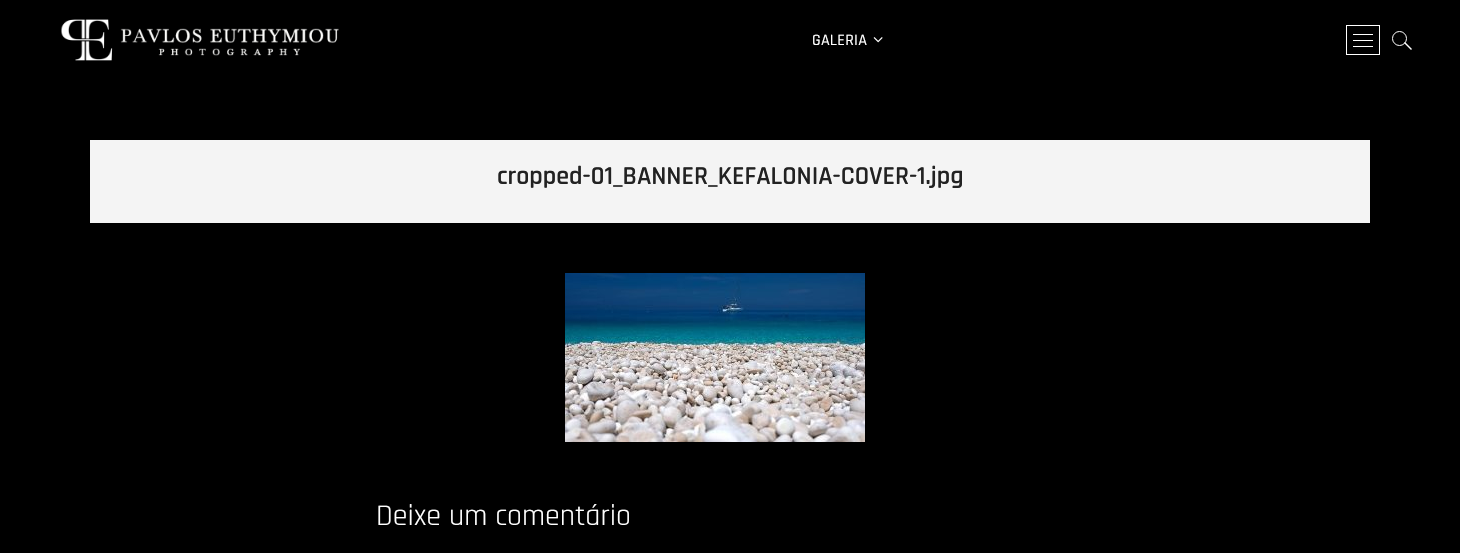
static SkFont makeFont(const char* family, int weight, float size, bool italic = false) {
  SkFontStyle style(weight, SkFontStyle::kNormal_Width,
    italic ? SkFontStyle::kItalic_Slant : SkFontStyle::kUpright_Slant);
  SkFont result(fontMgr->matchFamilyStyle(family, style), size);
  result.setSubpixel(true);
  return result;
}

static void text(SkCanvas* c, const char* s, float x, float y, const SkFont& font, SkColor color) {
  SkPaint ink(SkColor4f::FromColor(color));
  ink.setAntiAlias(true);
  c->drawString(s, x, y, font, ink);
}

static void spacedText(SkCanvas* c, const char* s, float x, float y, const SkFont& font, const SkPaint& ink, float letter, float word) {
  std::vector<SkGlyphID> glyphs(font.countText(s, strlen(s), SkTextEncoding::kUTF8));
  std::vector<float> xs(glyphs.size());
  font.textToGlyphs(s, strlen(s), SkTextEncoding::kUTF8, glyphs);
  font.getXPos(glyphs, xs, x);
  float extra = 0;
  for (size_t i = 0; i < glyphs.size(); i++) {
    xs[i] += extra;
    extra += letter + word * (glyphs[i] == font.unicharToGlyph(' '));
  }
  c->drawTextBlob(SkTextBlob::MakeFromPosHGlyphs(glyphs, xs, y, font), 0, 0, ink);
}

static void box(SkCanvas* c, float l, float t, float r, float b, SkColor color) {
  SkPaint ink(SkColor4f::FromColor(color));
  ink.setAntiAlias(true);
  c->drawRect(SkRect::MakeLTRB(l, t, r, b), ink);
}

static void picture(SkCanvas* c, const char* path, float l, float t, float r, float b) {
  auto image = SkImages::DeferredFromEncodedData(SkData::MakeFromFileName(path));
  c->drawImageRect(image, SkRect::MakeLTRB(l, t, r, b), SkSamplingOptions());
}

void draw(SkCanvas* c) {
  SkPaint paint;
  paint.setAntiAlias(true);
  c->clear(0xff000000);
  picture(c, "img_01.png", 61, 19, 339, 61);
  SkFont face1 = makeFont("Rajdhani", 500, 16);
  paint.setColor(0xffffffff);
  spacedText(c, "GALERIA", 812, 45, face1, paint, 0.25f, 0);
  picture(c, "img_02.png", 873, 37, 883, 43);
  paint.setStyle(SkPaint::kStroke_Style);
  paint.setStrokeWidth(1);
  c->drawRect(SkRect::MakeLTRB(1346.5f, 25.5f, 1379.5f, 54.5f), paint);
  box(c, 1353, 40, 1373, 41, 0xffffffff);
  box(c, 1353, 34, 1373, 35, 0xffffffff);
  box(c, 1353, 46, 1373, 47, 0xffffffff);
  c->drawCircle(1399.5f, 38.5f, 7, paint);
  paint.setStyle(SkPaint::kFill_Style);
  c->drawPath(SkPathBuilder().moveTo(1404, 43).lineTo(1405, 42).lineTo(1412, 49).lineTo(1411, 50).close().detach(), paint);
  box(c, 90, 140, 1370, 223, 0xfff4f4f4);
  SkFont face2 = makeFont("Rajdhani", 600, 26);
  text(c, "cropped-01_BANNER_KEFALONIA-COVER-1.jpg", 497, 184, face2, 0xff222222);
  picture(c, "img_03.png", 565, 273, 865, 442);
  SkFont face3 = makeFont("Rajdhani", 400, 30);
  text(c, "Deixe um comentário", 376, 525, face3, 0xffffffff);
}
